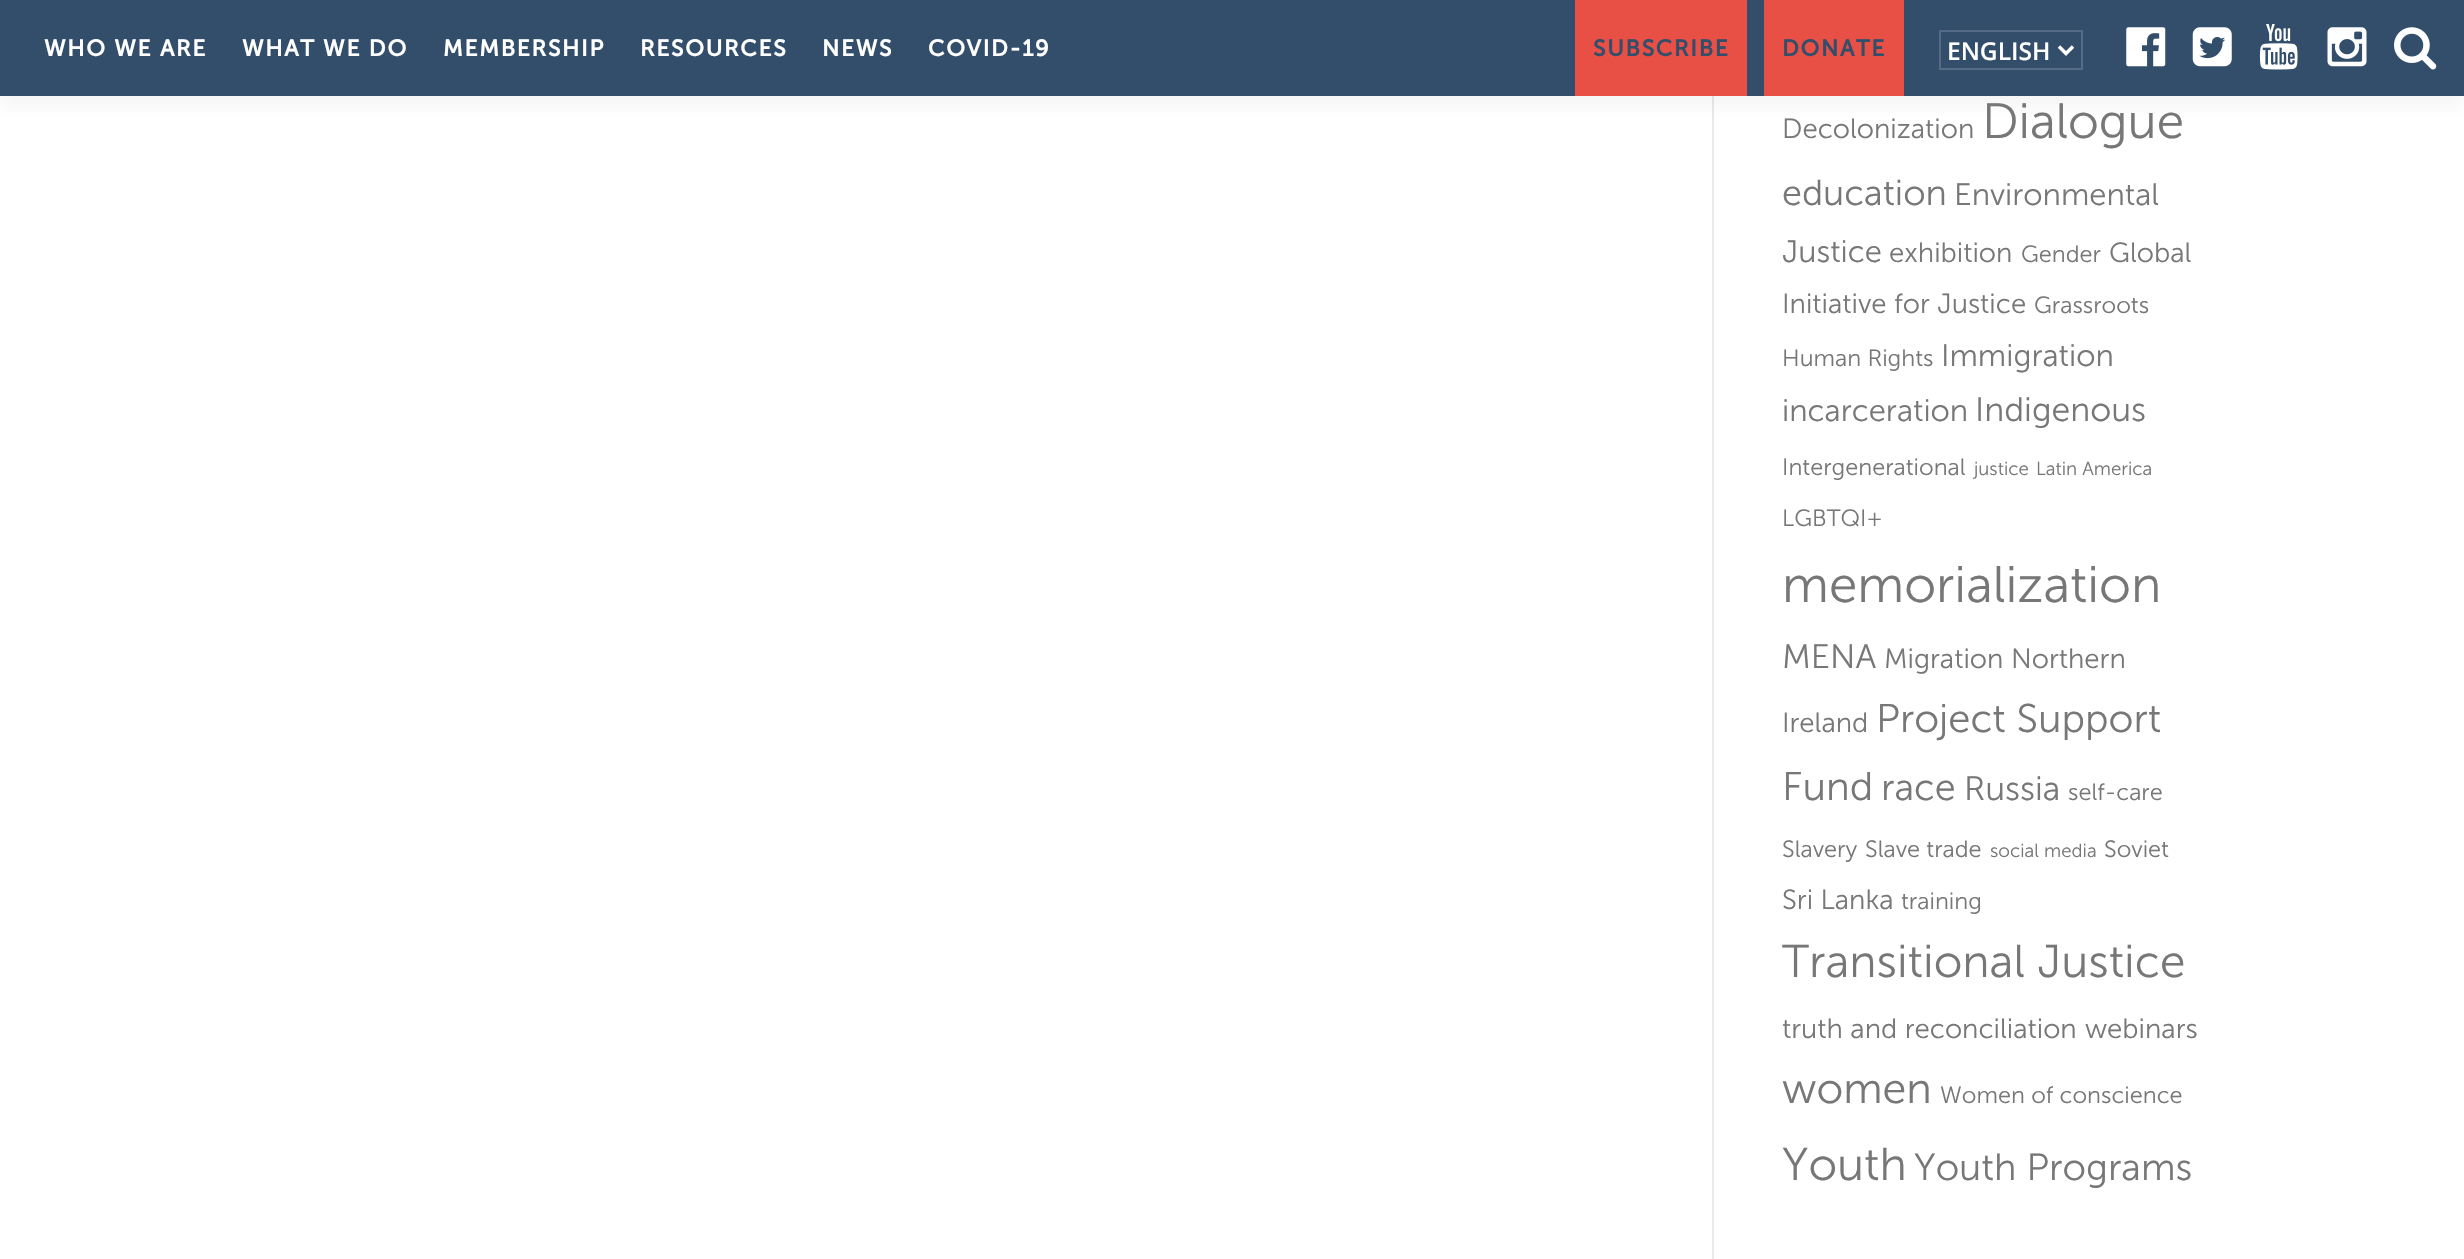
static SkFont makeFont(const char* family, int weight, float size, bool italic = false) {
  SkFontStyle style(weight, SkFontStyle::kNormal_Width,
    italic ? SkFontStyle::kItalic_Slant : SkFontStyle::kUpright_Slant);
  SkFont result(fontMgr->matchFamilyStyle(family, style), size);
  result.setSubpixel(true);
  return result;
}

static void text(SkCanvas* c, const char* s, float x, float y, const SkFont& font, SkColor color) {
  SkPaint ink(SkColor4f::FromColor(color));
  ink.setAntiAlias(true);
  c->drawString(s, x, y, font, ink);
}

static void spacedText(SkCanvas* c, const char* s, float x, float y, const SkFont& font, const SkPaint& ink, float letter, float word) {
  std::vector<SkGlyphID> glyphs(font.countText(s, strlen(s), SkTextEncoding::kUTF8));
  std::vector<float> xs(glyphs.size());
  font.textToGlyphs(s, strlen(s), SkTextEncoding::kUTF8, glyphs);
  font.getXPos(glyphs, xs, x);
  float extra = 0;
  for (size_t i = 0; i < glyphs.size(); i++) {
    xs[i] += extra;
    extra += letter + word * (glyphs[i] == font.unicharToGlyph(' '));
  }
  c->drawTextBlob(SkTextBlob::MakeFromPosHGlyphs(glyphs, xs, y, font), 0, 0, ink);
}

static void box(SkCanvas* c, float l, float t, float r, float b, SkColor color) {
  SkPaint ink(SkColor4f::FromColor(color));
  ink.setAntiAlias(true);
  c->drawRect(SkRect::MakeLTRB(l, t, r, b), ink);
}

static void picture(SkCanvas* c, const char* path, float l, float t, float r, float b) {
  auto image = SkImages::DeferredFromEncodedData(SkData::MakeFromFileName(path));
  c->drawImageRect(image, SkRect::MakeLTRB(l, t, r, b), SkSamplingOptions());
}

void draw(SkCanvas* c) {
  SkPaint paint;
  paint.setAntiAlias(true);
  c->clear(0xffffffff);
  box(c, 1712, 96, 1714, 1259, 0xffe9e9e9);
  paint.setColor(0x0f323232);
  paint.setMaskFilter(SkMaskFilter::MakeBlur(kNormal_SkBlurStyle, 9));
  c->drawRect(SkRect::MakeLTRB(0, 9, 2464, 105), paint);
  paint.setMaskFilter(nullptr);
  box(c, 0, 0, 2464, 96, 0xff324e6b);
  SkFont face1 = makeFont("Museo Sans", 700, 22.75f);
  paint.setColor(0xffffffff);
  spacedText(c, "WHO WE ARE", 44, 56, face1, paint, 1.75f, 0);
  spacedText(c, "WHAT WE DO", 242, 56, face1, paint, 1.75f, 0);
  spacedText(c, "MEMBERSHIP", 443, 56, face1, paint, 1.75f, 0);
  spacedText(c, "RESOURCES", 640, 56, face1, paint, 1.75f, 0);
  spacedText(c, "NEWS", 822, 56, face1, paint, 1.75f, 0);
  spacedText(c, "COVID-19", 928, 56, face1, paint, 1.75f, 0);
  box(c, 1575, 0, 1747, 96, 0xffe84f45);
  paint.setColor(0xff324e6b);
  spacedText(c, "SUBSCRIBE", 1593, 56, face1, paint, 1.75f, 0);
  box(c, 1764, 0, 1904, 96, 0xffe84f45);
  spacedText(c, "DONATE", 1782, 56, face1, paint, 1.75f, 0);
  paint.setStyle(SkPaint::kStroke_Style);
  paint.setStrokeWidth(2);
  paint.setColor(0xff556a86);
  c->drawRect(SkRect::MakeLTRB(1940, 31, 2082, 69), paint);
  paint.setStrokeWidth(3.5f);
  paint.setColor(0xffffffff);
  c->drawPath(SkPathBuilder().moveTo(2059, 46.5f).lineTo(2066, 53.5f).lineTo(2073, 46.5f).detach(), paint);
  SkFont face2 = makeFont("Open Sans", 600, 24.5f);
  text(c, "ENGLISH", 1947, 60, face2, 0xffffffff);
  picture(c, "img_01.png", 2126, 27, 2166, 67);
  picture(c, "img_02.png", 2192, 27, 2232, 67);
  picture(c, "img_03.png", 2259, 24, 2298, 70);
  picture(c, "img_04.png", 2327, 27, 2367, 67);
  picture(c, "img_05.png", 2394, 27, 2437, 70);
  SkFont face3 = makeFont("Museo Sans", 300, 27.6f);
  text(c, "Decolonization", 1782, 138, face3, 0xff777777);
  SkFont face4 = makeFont("Museo Sans", 300, 49.5f);
  text(c, "Dialogue", 1982, 138, face4, 0xff777777);
  SkFont face5 = makeFont("Museo Sans", 300, 36);
  text(c, "education", 1782, 205, face5, 0xff777777);
  SkFont face6 = makeFont("Museo Sans", 300, 31);
  text(c, "Environmental", 1954, 205, face6, 0xff777777);
  text(c, "Justice", 1782, 262, face6, 0xff777777);
  text(c, "exhibition", 1889, 262, face3, 0xff777777);
  SkFont face7 = makeFont("Museo Sans", 300, 23.5f);
  text(c, "Gender", 2021, 262, face7, 0xff777777);
  text(c, "Global", 2109, 262, face3, 0xff777777);
  text(c, "Initiative for Justice", 1782, 313, face3, 0xff777777);
  text(c, "Grassroots", 2034, 313, face7, 0xff777777);
  text(c, "Human Rights", 1782, 366, face7, 0xff777777);
  text(c, "Immigration", 1941, 366, face6, 0xff777777);
  text(c, "incarceration", 1782, 421, face6, 0xff777777);
  SkFont face8 = makeFont("Museo Sans", 300, 33.75f);
  text(c, "Indigenous", 1975, 421, face8, 0xff777777);
  text(c, "Intergenerational", 1782, 475, face7, 0xff777777);
  SkFont face9 = makeFont("Museo Sans", 300, 18.75f);
  text(c, "justice", 1974, 475, face9, 0xff777777);
  text(c, "Latin America", 2036, 475, face9, 0xff777777);
  text(c, "LGBTQI+", 1782, 526, face7, 0xff777777);
  SkFont face10 = makeFont("Museo Sans", 300, 51.25f);
  text(c, "memorialization", 1782, 602, face10, 0xff777777);
  text(c, "MENA", 1782, 668, face8, 0xff777777);
  text(c, "Migration", 1884, 668, face3, 0xff777777);
  text(c, "Northern", 2011, 668, face3, 0xff777777);
  text(c, "Ireland", 1782, 732, face3, 0xff777777);
  SkFont face11 = makeFont("Museo Sans", 300, 40);
  text(c, "Project Support", 1876, 732, face11, 0xff777777);
  text(c, "Fund", 1782, 800, face11, 0xff777777);
  SkFont face12 = makeFont("Museo Sans", 300, 37.75f);
  text(c, "race", 1881, 800, face12, 0xff777777);
  text(c, "Russia", 1964, 800, face8, 0xff777777);
  text(c, "self-care", 2068, 800, face7, 0xff777777);
  text(c, "Slavery", 1782, 857, face7, 0xff777777);
  text(c, "Slave trade", 1865, 857, face7, 0xff777777);
  text(c, "social media", 1990, 857, face9, 0xff777777);
  text(c, "Soviet", 2104, 857, face7, 0xff777777);
  text(c, "Sri Lanka", 1782, 909, face3, 0xff777777);
  text(c, "training", 1901, 909, face7, 0xff777777);
  SkFont face13 = makeFont("Museo Sans", 300, 46);
  text(c, "Transitional Justice", 1782, 977, face13, 0xff777777);
  text(c, "truth and reconciliation", 1782, 1038, face3, 0xff777777);
  text(c, "webinars", 2085, 1038, face3, 0xff777777);
  SkFont face14 = makeFont("Museo Sans", 300, 43);
  text(c, "women", 1782, 1103, face14, 0xff777777);
  text(c, "Women of conscience", 1940, 1103, face7, 0xff777777);
  text(c, "Youth", 1782, 1180, face13, 0xff777777);
  text(c, "Youth Programs", 1914, 1180, face12, 0xff777777);
}
